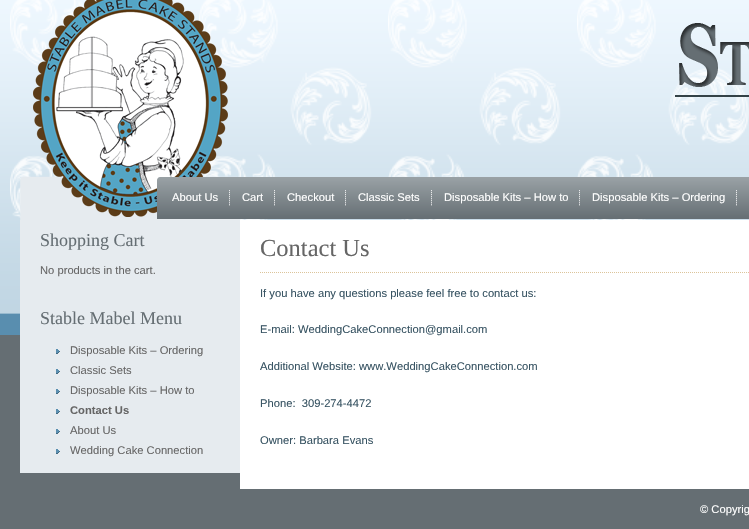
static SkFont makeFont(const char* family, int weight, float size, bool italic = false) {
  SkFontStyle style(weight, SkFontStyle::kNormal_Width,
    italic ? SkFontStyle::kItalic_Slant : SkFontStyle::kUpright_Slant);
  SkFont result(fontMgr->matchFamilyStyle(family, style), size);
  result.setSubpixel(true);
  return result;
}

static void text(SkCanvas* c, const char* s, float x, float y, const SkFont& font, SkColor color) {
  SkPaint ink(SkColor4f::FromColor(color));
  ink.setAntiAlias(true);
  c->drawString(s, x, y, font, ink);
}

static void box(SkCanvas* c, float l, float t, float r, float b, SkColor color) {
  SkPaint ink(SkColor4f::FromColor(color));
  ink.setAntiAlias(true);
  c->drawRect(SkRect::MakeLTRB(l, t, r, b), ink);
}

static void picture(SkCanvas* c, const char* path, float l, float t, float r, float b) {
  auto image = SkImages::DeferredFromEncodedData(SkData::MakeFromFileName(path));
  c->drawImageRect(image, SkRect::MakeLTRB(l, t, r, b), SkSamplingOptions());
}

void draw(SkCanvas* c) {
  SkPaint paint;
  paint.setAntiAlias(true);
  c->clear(0xff656e73);
  picture(c, "img_01.png", 0, 0, 749, 335);
  picture(c, "img_02.png", 20, 0, 240, 220);
  picture(c, "img_03.png", 675, 23, 749, 97);
  {
    const SkColor colors[] = {0xff9aa2a6, 0xff656e73};
    const float stops[] = {0, 1};
    const SkPoint ends[] = {{639, 177}, {639, 219}};
    paint.setShader(SkGradientShader::MakeLinear(ends, colors, stops, 2, SkTileMode::kClamp));
    paint.setAlpha(255);
  }
  c->drawPath(SkPathBuilder().moveTo(160, 177).lineTo(749, 177).cubicTo(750.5f, 177, 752, 178.5f, 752, 180).lineTo(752, 219).lineTo(157, 219).lineTo(157, 180).cubicTo(157, 178.5f, 158.5f, 177, 160, 177).close().detach(), paint);
  picture(c, "img_04.png", 229, 190, 230, 206);
  SkFont face1 = makeFont("Liberation Sans", 400, 11.2f);
  text(c, "About Us", 172, 201, face1, 0xffffffff);
  picture(c, "img_04.png", 274, 190, 275, 206);
  text(c, "Cart", 242, 201, face1, 0xffffffff);
  picture(c, "img_04.png", 345, 190, 346, 206);
  text(c, "Checkout", 287, 201, face1, 0xffffffff);
  picture(c, "img_04.png", 431, 190, 432, 206);
  text(c, "Classic Sets", 358, 201, face1, 0xffffffff);
  picture(c, "img_04.png", 579, 190, 580, 206);
  text(c, "Disposable Kits – How to", 444, 201, face1, 0xffffffff);
  picture(c, "img_04.png", 736, 190, 737, 206);
  text(c, "Disposable Kits – Ordering", 592, 201, face1, 0xffffffff);
  box(c, 20, 220, 240, 473, 0xffe6ebef);
  SkFont face2 = makeFont("Liberation Serif", 400, 18);
  text(c, "Shopping Cart", 40, 246, face2, 0xff656e73);
  text(c, "No products in the cart.", 40, 274, face1, 0xff666666);
  text(c, "Stable Mabel Menu", 40, 324, face2, 0xff656e73);
  picture(c, "img_05.png", 56, 349, 60, 354);
  text(c, "Disposable Kits – Ordering", 70, 354, face1, 0xff666666);
  picture(c, "img_05.png", 56, 369, 60, 374);
  text(c, "Classic Sets", 70, 374, face1, 0xff666666);
  picture(c, "img_05.png", 56, 389, 60, 394);
  text(c, "Disposable Kits – How to", 70, 394, face1, 0xff666666);
  picture(c, "img_05.png", 56, 409, 60, 414);
  SkFont face3 = makeFont("Liberation Sans", 700, 11.2f);
  text(c, "Contact Us", 70, 414, face3, 0xff666666);
  picture(c, "img_05.png", 56, 429, 60, 434);
  text(c, "About Us", 70, 434, face1, 0xff666666);
  picture(c, "img_05.png", 56, 449, 60, 454);
  text(c, "Wedding Cake Connection", 70, 454, face1, 0xff666666);
  box(c, 240, 220, 749, 489, 0xffffffff);
  paint.setStyle(SkPaint::kStroke_Style);
  paint.setStrokeWidth(1);
  paint.setShader(nullptr);
  paint.setColor(0xffdcc49a);
  paint.setPathEffect(SkDashPathEffect::Make({{1, 1}}, 0));
  c->drawPath(SkPathBuilder().moveTo(260, 272.5f).lineTo(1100, 272.5f).detach(), paint);
  paint.setPathEffect(nullptr);
  SkFont face4 = makeFont("Liberation Serif", 400, 24.5f);
  text(c, "Contact Us", 260, 256, face4, 0xff666666);
  text(c, "If you have any questions please feel free to contact us:", 260, 297, face1, 0xff375362);
  text(c, "E-mail: WeddingCakeConnection@gmail.com", 260, 333, face1, 0xff375362);
  text(c, "Additional Website: www.WeddingCakeConnection.com", 260, 370, face1, 0xff375362);
  text(c, "Phone:  309-274-4472", 260, 407, face1, 0xff375362);
  text(c, "Owner: Barbara Evans", 260, 444, face1, 0xff375362);
  text(c, "© Copyrig", 700, 513, face1, 0xffffffff);
}
